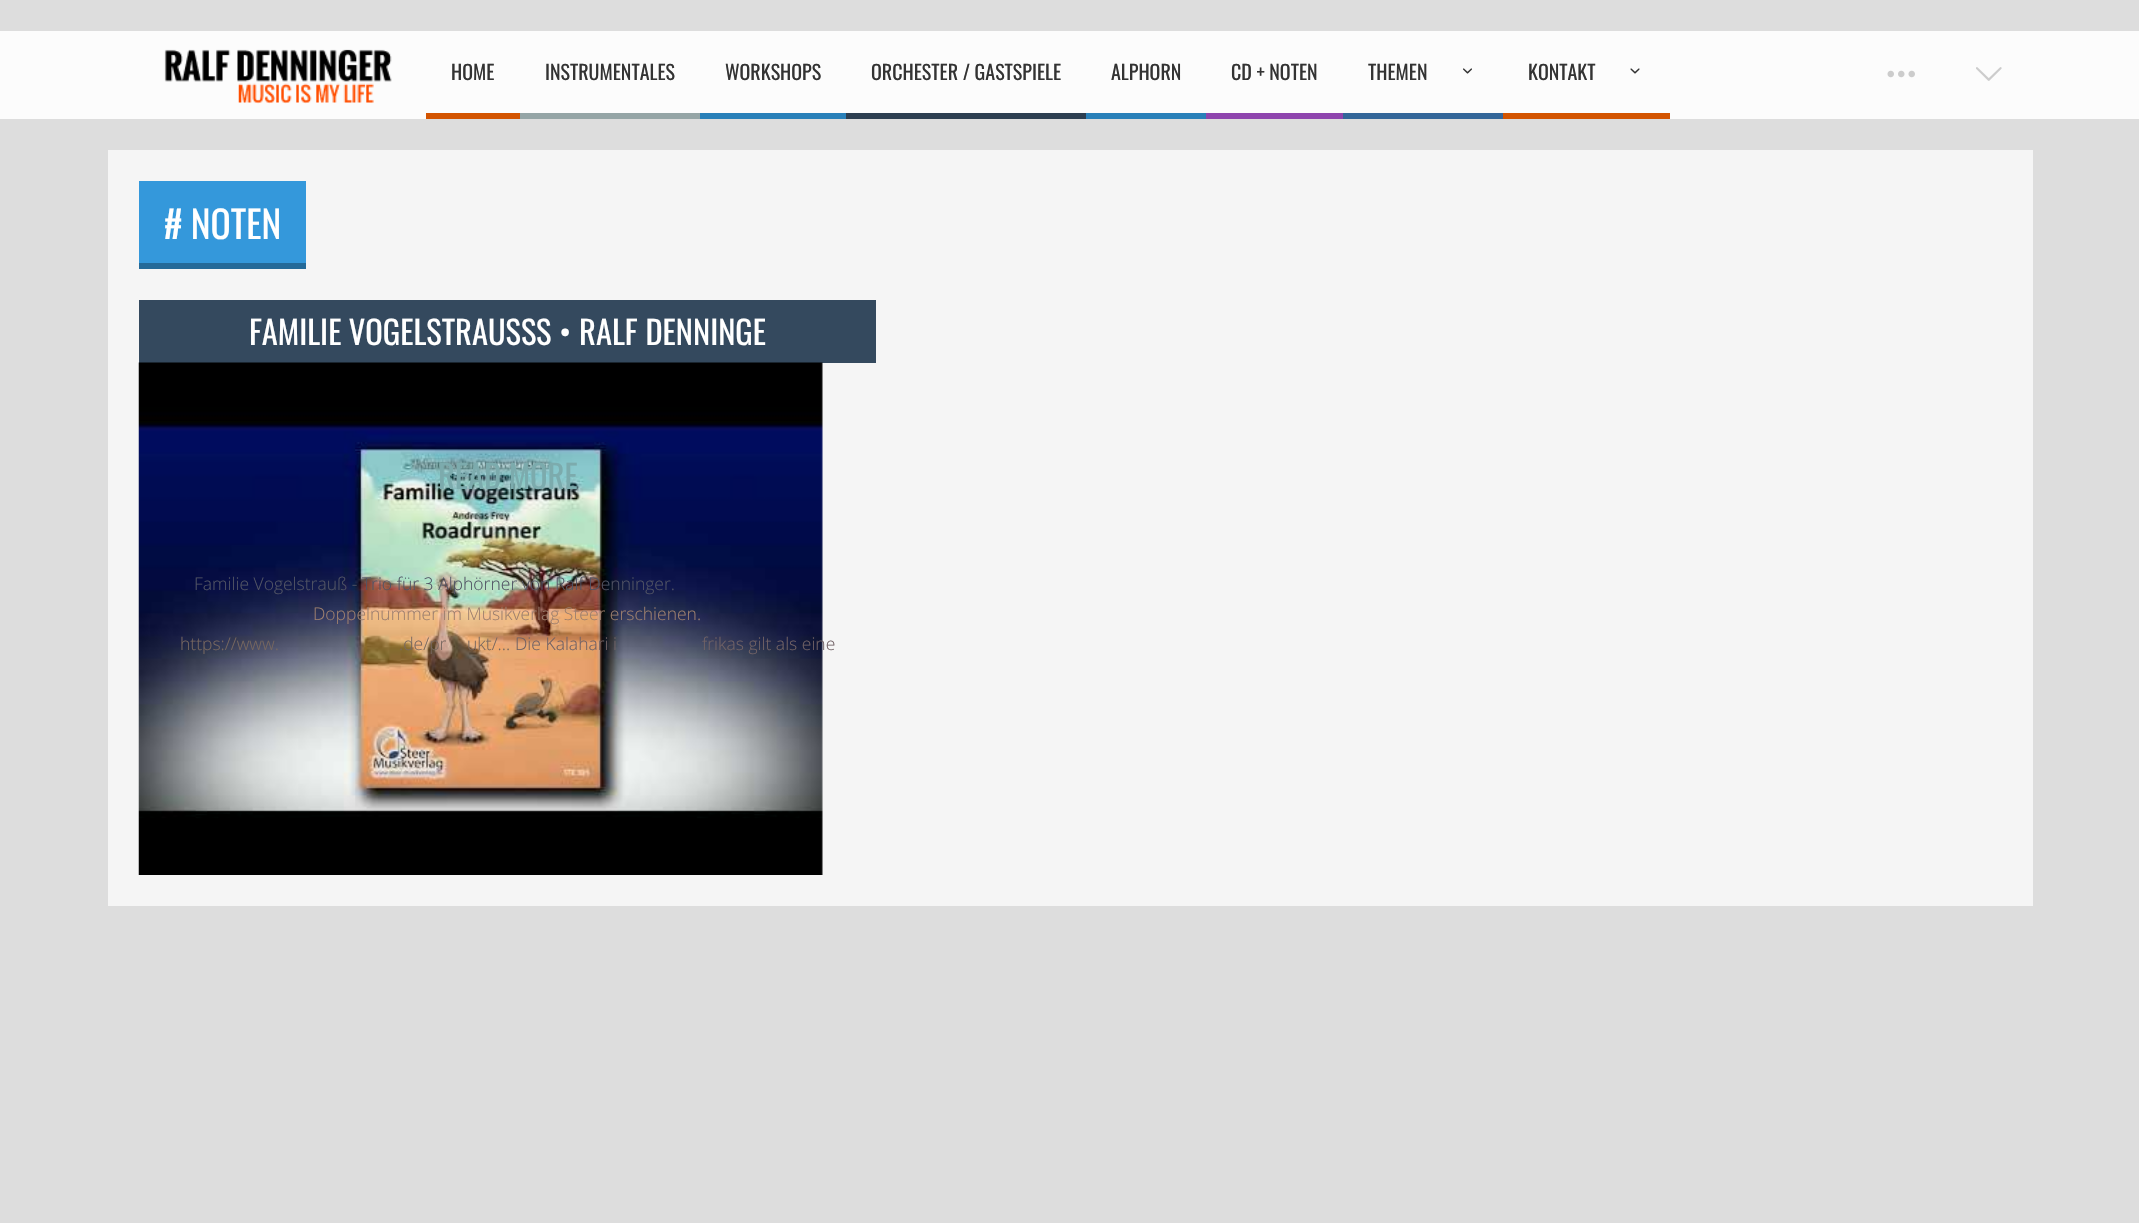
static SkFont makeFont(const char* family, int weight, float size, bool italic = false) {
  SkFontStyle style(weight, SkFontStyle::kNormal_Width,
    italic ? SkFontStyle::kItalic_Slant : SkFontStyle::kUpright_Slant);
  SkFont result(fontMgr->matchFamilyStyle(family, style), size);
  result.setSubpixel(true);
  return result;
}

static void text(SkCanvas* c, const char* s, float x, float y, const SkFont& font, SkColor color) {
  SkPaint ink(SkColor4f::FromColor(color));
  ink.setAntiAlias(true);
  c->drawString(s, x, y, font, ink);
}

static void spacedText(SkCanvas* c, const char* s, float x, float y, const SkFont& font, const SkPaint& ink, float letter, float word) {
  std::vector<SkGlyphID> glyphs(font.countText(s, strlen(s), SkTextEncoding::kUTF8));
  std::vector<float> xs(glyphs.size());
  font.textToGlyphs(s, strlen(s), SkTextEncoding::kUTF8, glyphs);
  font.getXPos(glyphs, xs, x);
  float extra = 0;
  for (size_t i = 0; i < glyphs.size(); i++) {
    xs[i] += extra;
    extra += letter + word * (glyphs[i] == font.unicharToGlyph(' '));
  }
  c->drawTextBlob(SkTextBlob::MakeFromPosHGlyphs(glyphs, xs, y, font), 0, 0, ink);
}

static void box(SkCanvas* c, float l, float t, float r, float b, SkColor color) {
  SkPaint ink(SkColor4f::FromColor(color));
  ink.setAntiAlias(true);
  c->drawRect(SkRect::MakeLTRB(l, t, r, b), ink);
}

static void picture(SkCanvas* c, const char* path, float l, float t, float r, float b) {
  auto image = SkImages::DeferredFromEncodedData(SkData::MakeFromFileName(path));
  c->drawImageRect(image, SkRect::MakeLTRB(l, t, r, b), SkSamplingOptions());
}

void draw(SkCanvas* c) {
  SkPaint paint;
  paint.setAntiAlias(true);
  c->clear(0xffdddddd);
  box(c, 0, 31, 2139, 119, 0xfffcfcfc);
  picture(c, "img_01.png", 164, 49, 392, 104);
  box(c, 426, 113, 520, 119, 0xffd35400);
  SkFont face1 = makeFont("Oswald", 400, 20);
  text(c, "HOME", 451, 80, face1, 0xff333333);
  box(c, 520, 113, 700, 119, 0xff95a5a6);
  text(c, "INSTRUMENTALES", 545, 80, face1, 0xff333333);
  box(c, 700, 113, 846, 119, 0xff2980b9);
  text(c, "WORKSHOPS", 725, 80, face1, 0xff333333);
  box(c, 846, 113, 1086, 119, 0xff2c3e50);
  text(c, "ORCHESTER / GASTSPIELE", 871, 80, face1, 0xff333333);
  box(c, 1086, 113, 1206, 119, 0xff2980b9);
  text(c, "ALPHORN", 1111, 80, face1, 0xff333333);
  box(c, 1206, 113, 1343, 119, 0xff8e44ad);
  text(c, "CD + NOTEN", 1231, 80, face1, 0xff333333);
  box(c, 1343, 113, 1503, 119, 0xff336699);
  text(c, "THEMEN", 1368, 80, face1, 0xff333333);
  picture(c, "img_02.png", 1463, 68, 1472, 74);
  box(c, 1503, 113, 1670, 119, 0xffd35400);
  text(c, "KONTAKT", 1528, 80, face1, 0xff333333);
  picture(c, "img_03.png", 1630, 68, 1640, 74);
  picture(c, "img_04.png", 1887, 70, 1915, 78);
  picture(c, "img_05.png", 1976, 67, 2002, 81);
  box(c, 108, 150, 2033, 906, 0xfff5f5f5);
  box(c, 139, 181, 306, 263, 0xff3498db);
  box(c, 139, 263, 306, 269, 0xff246a99);
  SkFont face2 = makeFont("Oswald", 400, 37.5f);
  text(c, "# NOTEN", 164, 239, face2, 0xffffffff);
  box(c, 139, 300, 876, 363, 0xff34495e);
  SkFont face3 = makeFont("Oswald", 400, 32.5f);
  text(c, "FAMILIE VOGELSTRAUSS", 249, 345, face3, 0xffffffff);
  paint.setColor(0xffffffff);
  spacedText(c, "S • RALF DENNINGE", 536, 345, face3, paint, 0, 0.5f);
  picture(c, "img_06.png", 138, 362, 823, 875);
  text(c, "READ MORE", 438, 489, face3, 0xff7cabad);
  SkFont face4 = makeFont("Open Sans", 300, 17.5f);
  text(c, "Familie Vogelstrauß - Trio für 3 Alphörner von Ralf Denninger.", 194, 590, face4, 0xff515464);
  text(c, "Doppelnummer im Musikverlag Steer erschienen.", 313, 620, face4, 0xff9d7f6e);
  text(c, "https://www.", 180, 650, face4, 0xff77675f);
  text(c, ".de/pr", 399, 650, face4, 0xff77675f);
  text(c, "ukt/...", 467, 650, face4, 0xff77675f);
  text(c, "Die Kalahari i", 515, 650, face4, 0xff716265);
  text(c, "frikas gilt als eine", 702, 650, face4, 0xff716265);
}
